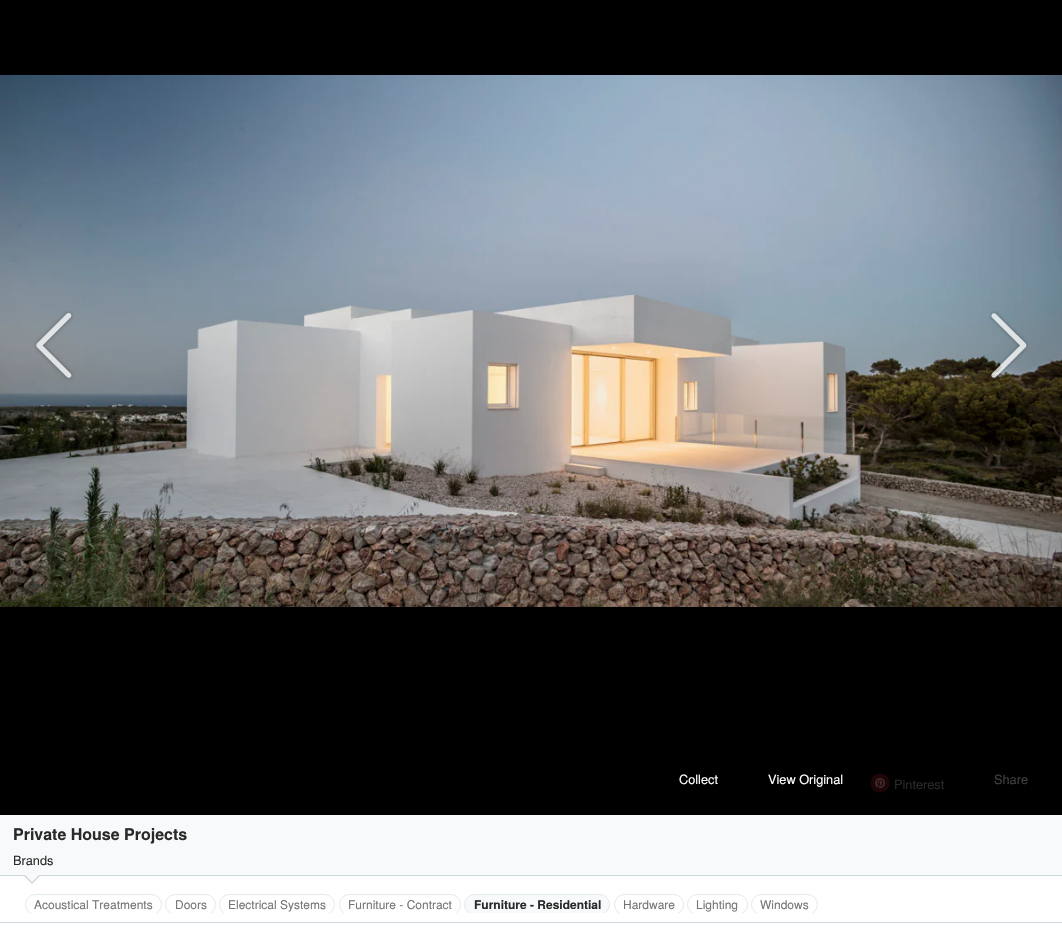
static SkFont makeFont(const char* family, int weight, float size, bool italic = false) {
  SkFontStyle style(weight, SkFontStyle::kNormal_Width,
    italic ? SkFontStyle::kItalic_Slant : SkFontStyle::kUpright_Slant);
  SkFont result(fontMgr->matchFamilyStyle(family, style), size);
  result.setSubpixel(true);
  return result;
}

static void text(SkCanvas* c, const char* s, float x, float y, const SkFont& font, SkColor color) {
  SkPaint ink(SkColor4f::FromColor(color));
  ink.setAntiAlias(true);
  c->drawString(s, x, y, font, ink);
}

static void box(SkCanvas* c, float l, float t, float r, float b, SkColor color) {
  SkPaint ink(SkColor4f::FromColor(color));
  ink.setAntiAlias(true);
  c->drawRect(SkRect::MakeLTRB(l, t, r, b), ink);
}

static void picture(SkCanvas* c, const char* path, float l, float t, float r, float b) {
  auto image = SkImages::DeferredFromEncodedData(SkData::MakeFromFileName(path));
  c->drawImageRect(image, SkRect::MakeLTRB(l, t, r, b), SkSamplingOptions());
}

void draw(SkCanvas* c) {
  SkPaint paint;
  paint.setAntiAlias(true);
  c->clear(0xffffffff);
  box(c, 0, 0, 1062, 815, 0xff000000);
  picture(c, "img_01.png", 0, 75, 1062, 607);
  picture(c, "img_02.png", 34, 311, 74, 380);
  picture(c, "img_03.png", 989, 311, 1029, 379);
  SkFont face1 = makeFont("TeX Gyre Heros", 400, 12.75f);
  text(c, "Collect", 679, 784, face1, 0xffffffff);
  text(c, "View Original", 768, 784, face1, 0xffffffff);
  picture(c, "img_04.png", 870, 773, 890, 793);
  text(c, "Pinterest", 894, 789, face1, 0xff292929);
  text(c, "Share", 994, 784, face1, 0xff404040);
  box(c, 0, 815, 1062, 875, 0xfff7f9fa);
  box(c, 0, 875, 1062, 876, 0xffced9df);
  SkFont face2 = makeFont("TeX Gyre Heros", 700, 16);
  text(c, "Private House Projects", 13, 840, face2, 0xff292929);
  text(c, "Brands", 13, 865, face1, 0xff292929);
  paint.setColor(0xffced9df);
  c->drawPath(SkPathBuilder().moveTo(23, 875).lineTo(41, 875).lineTo(32, 884).close().detach(), paint);
  paint.setColor(0xfff7f9fa);
  c->drawPath(SkPathBuilder().moveTo(24, 874).lineTo(40, 874).lineTo(32, 882).close().detach(), paint);
  c->save();
  c->clipRect(SkRect::MakeLTRB(25, 888, 1037, 913));
  paint.setStyle(SkPaint::kStroke_Style);
  paint.setStrokeWidth(1);
  paint.setColor(0xffe3eaed);
  c->drawRoundRect(SkRect::MakeLTRB(25.5f, 894.5f, 161.5f, 914.5f), 10, 10, paint);
  c->restore();
  SkFont face3 = makeFont("TeX Gyre Heros", 400, 12);
  text(c, "Acoustical Treatments", 34, 909, face3, 0xff757575);
  c->save();
  c->clipRect(SkRect::MakeLTRB(25, 888, 1037, 913));
  c->drawRoundRect(SkRect::MakeLTRB(165.5f, 894.5f, 215.5f, 914.5f), 10, 10, paint);
  c->restore();
  text(c, "Doors", 175, 909, face3, 0xff757575);
  c->save();
  c->clipRect(SkRect::MakeLTRB(25, 888, 1037, 913));
  c->drawRoundRect(SkRect::MakeLTRB(219.5f, 894.5f, 334.5f, 914.5f), 10, 10, paint);
  c->restore();
  text(c, "Electrical Systems", 228, 909, face3, 0xff757575);
  c->save();
  c->clipRect(SkRect::MakeLTRB(25, 888, 1037, 913));
  c->drawRoundRect(SkRect::MakeLTRB(339.5f, 894.5f, 460.5f, 914.5f), 10, 10, paint);
  c->restore();
  text(c, "Furniture - Contract", 348, 909, face3, 0xff757575);
  c->save();
  c->clipRect(SkRect::MakeLTRB(25, 888, 1037, 913));
  paint.setStyle(SkPaint::kFill_Style);
  paint.setColor(0xfff7f9fa);
  c->drawRoundRect(SkRect::MakeLTRB(464.5f, 894.5f, 609.5f, 914.5f), 10, 10, paint);
  paint.setStyle(SkPaint::kStroke_Style);
  paint.setColor(0xffe3eaed);
  c->drawRoundRect(SkRect::MakeLTRB(464.5f, 894.5f, 609.5f, 914.5f), 10, 10, paint);
  c->restore();
  SkFont face4 = makeFont("TeX Gyre Heros", 700, 12);
  text(c, "Furniture - Residential", 474, 909, face4, 0xff292929);
  c->save();
  c->clipRect(SkRect::MakeLTRB(25, 888, 1037, 913));
  c->drawRoundRect(SkRect::MakeLTRB(614.5f, 894.5f, 683.5f, 914.5f), 10, 10, paint);
  c->restore();
  text(c, "Hardware", 623, 909, face3, 0xff757575);
  c->save();
  c->clipRect(SkRect::MakeLTRB(25, 888, 1037, 913));
  c->drawRoundRect(SkRect::MakeLTRB(687.5f, 894.5f, 747.5f, 914.5f), 10, 10, paint);
  c->restore();
  text(c, "Lighting", 696, 909, face3, 0xff757575);
  c->save();
  c->clipRect(SkRect::MakeLTRB(25, 888, 1037, 913));
  c->drawRoundRect(SkRect::MakeLTRB(751.5f, 894.5f, 817.5f, 914.5f), 10, 10, paint);
  c->restore();
  text(c, "Windows", 760, 909, face3, 0xff757575);
  box(c, 0, 922, 1062, 923, 0xffced9df);
}
